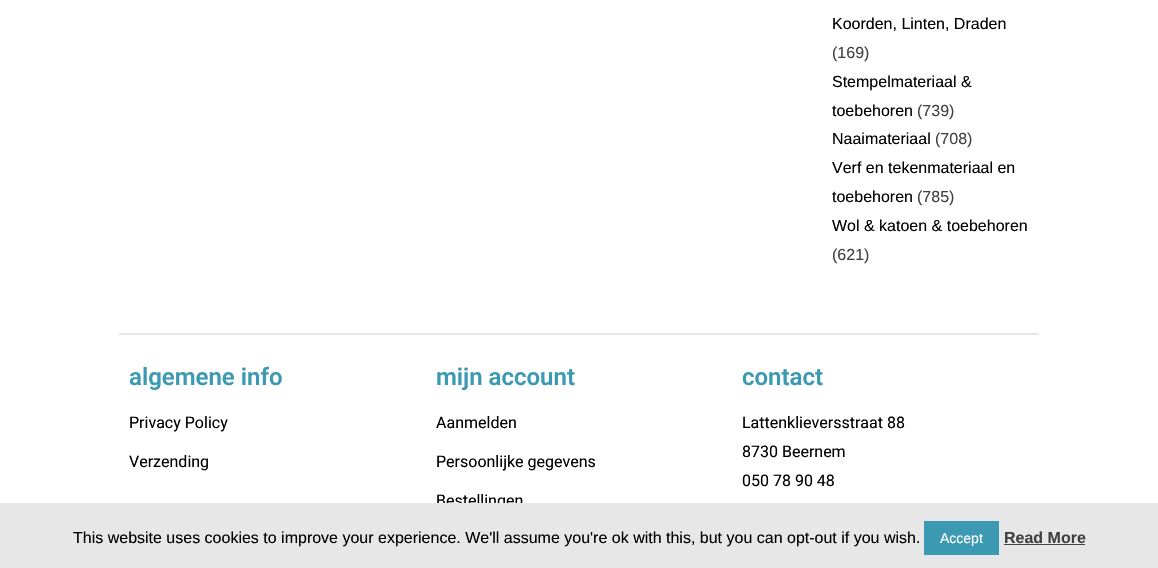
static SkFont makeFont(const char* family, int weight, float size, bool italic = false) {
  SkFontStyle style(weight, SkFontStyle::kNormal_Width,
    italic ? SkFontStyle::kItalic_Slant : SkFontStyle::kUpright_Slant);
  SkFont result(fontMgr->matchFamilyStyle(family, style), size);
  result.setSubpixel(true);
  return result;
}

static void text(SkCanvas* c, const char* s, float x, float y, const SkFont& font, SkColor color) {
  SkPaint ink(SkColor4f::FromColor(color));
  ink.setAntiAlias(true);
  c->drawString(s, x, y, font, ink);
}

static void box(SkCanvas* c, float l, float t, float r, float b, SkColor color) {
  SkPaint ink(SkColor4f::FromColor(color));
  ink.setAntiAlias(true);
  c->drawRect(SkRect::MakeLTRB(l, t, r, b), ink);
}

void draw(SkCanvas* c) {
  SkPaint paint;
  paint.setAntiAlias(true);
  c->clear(0xffffffff);
  SkFont face1 = makeFont("Liberation Sans", 400, 16);
  text(c, "Koorden, Linten, Draden", 832, 29, face1, 0xff000000);
  text(c, "(169)", 832, 58, face1, 0xff404040);
  text(c, "Stempelmateriaal &", 832, 87, face1, 0xff000000);
  text(c, "toebehoren", 832, 116, face1, 0xff000000);
  text(c, "(739)", 917, 116, face1, 0xff404040);
  text(c, "Naaimateriaal", 832, 144, face1, 0xff000000);
  text(c, "(708)", 935, 144, face1, 0xff404040);
  text(c, "Verf en tekenmateriaal en", 832, 173, face1, 0xff000000);
  text(c, "toebehoren", 832, 202, face1, 0xff000000);
  text(c, "(785)", 917, 202, face1, 0xff404040);
  text(c, "Wol & katoen & toebehoren", 832, 231, face1, 0xff000000);
  text(c, "(621)", 832, 260, face1, 0xff404040);
  box(c, 119, 333, 1039, 335, 0xffe7e7e7);
  SkFont face2 = makeFont("Roboto", 600, 24);
  text(c, "algemene info", 129, 385, face2, 0xff3b9ab1);
  SkFont face3 = makeFont("Roboto", 400, 16);
  text(c, "Privacy Policy", 129, 428, face3, 0xff000000);
  text(c, "Verzending", 129, 467, face3, 0xff000000);
  text(c, "mijn account", 436, 385, face2, 0xff3b9ab1);
  text(c, "Aanmelden", 436, 428, face3, 0xff000000);
  text(c, "Persoonlijke gegevens", 436, 467, face3, 0xff000000);
  text(c, "Bestellingen", 436, 506, face3, 0xff000000);
  text(c, "contact", 742, 385, face2, 0xff3b9ab1);
  text(c, "Lattenklieversstraat 88", 742, 428, face3, 0xff000000);
  text(c, "8730 Beernem", 742, 457, face3, 0xff000000);
  text(c, "050 78 90 48", 742, 486, face3, 0xff000000);
  box(c, 0, 503, 1158, 568, 0xffe7e7e7);
  text(c, "This website uses cookies to improve your experience. We'll assume you're ok with this, but you can opt-out if you wish.", 73, 543, face1, 0xff000000);
  box(c, 924, 521, 999, 555, 0xff3b9ab1);
  SkFont face4 = makeFont("Liberation Sans", 400, 14);
  text(c, "Accept", 940, 543, face4, 0xffffffff);
  SkFont face5 = makeFont("Liberation Sans", 700, 16);
  text(c, "Read More", 1004, 543, face5, 0xff404040);
  box(c, 1004, 544, 1085, 545, 0xff444444);
}
